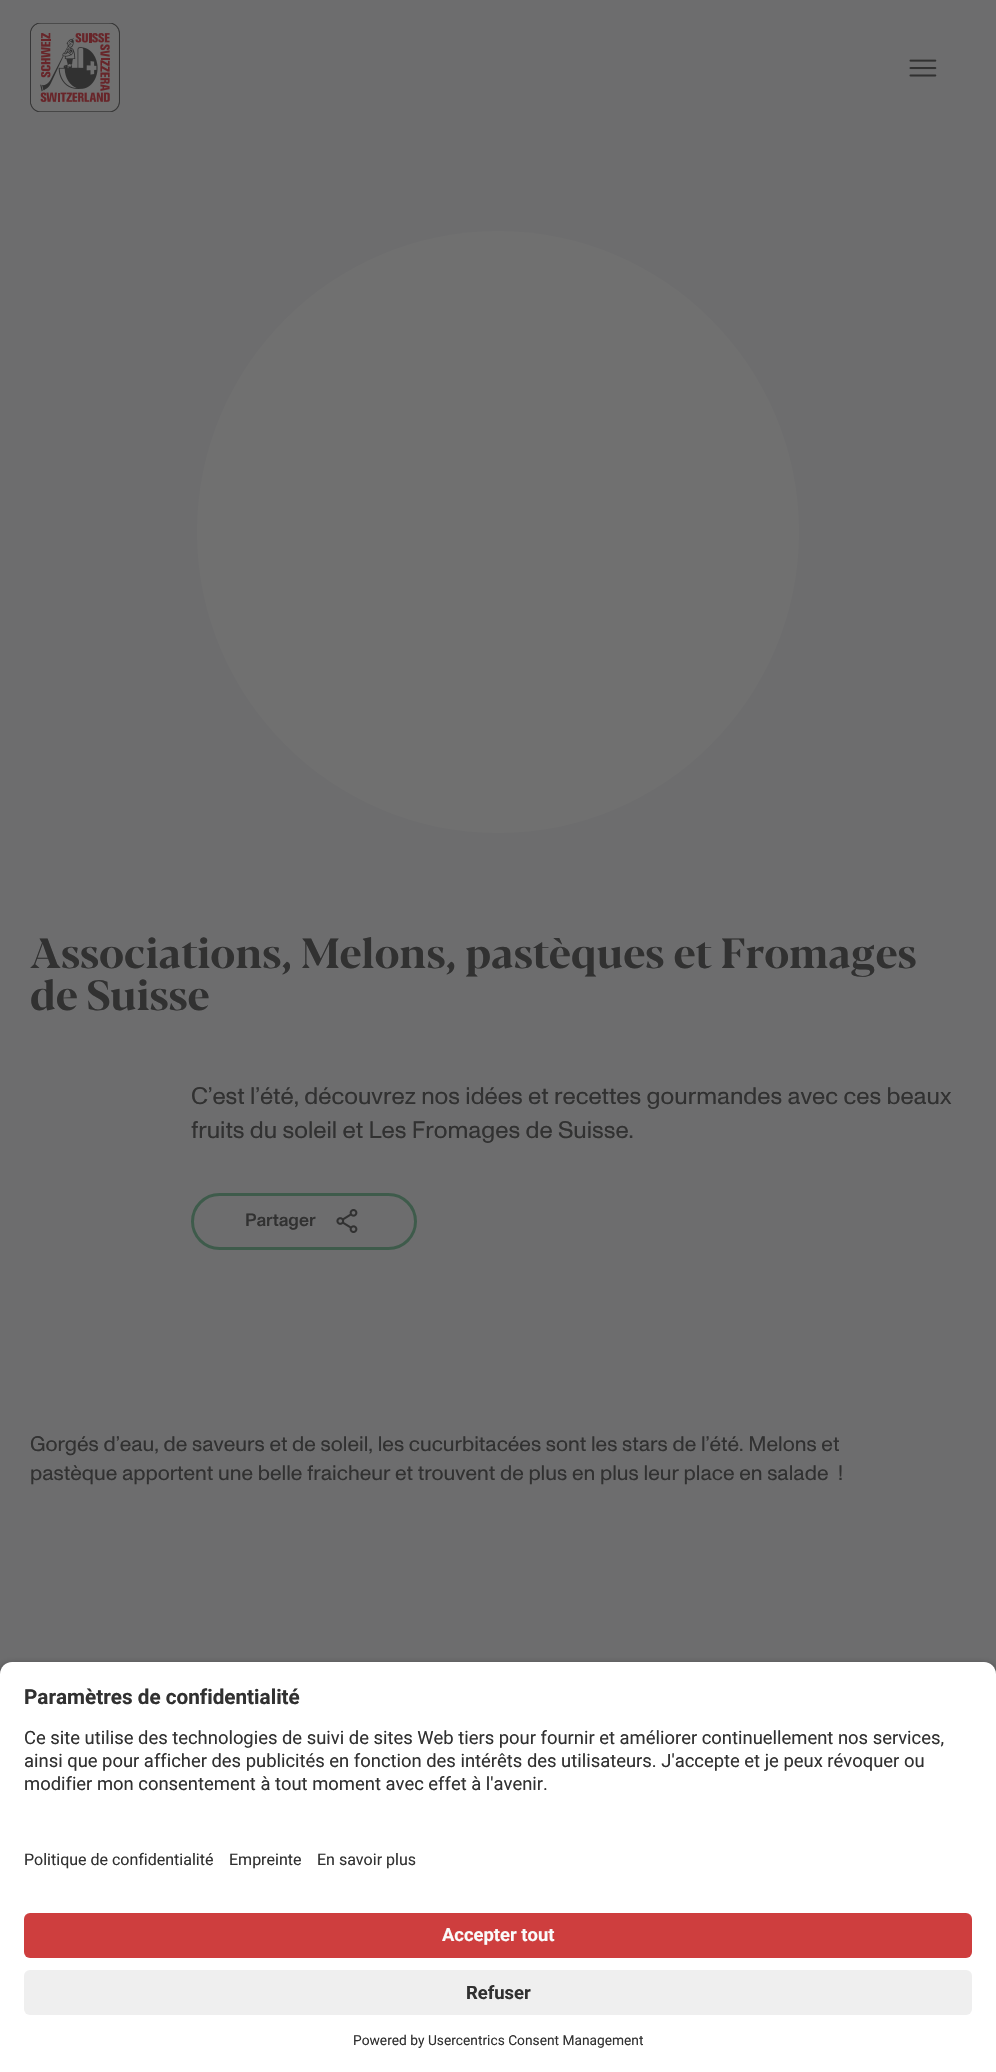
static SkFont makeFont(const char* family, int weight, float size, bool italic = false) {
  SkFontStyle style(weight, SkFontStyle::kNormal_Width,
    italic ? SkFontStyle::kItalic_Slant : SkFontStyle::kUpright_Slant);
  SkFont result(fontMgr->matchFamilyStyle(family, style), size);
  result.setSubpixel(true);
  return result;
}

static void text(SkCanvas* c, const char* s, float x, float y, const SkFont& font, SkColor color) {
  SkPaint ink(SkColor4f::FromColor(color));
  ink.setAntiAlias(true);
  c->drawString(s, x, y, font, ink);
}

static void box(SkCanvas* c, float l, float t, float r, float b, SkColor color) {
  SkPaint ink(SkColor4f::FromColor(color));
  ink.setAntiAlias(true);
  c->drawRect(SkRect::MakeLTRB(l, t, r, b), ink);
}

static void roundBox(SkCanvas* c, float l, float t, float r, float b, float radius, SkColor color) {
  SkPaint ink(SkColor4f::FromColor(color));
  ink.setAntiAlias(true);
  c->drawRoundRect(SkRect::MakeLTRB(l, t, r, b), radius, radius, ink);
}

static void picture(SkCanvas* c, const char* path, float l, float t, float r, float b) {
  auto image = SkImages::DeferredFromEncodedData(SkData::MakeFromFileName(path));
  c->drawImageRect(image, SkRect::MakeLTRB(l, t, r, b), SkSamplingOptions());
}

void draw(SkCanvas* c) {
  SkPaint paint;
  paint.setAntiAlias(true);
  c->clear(0xff6d6d6e);
  picture(c, "img_01.png", 30, 23, 120, 112);
  picture(c, "img_02.png", 909, 59, 937, 77);
  paint.setColor(0xff707070);
  c->drawPath(SkPathBuilder().moveTo(498, 231).cubicTo(332, 231, 197, 366, 197, 532).cubicTo(197, 698, 332, 833, 498, 833).cubicTo(664, 833, 799, 698, 799, 532).cubicTo(799, 366, 664, 231, 498, 231).close().detach(), paint);
  SkFont face1 = makeFont("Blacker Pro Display", 700, 42);
  text(c, "Associations, Melons, pastèques et Fromages", 30, 968, face1, 0xff313131);
  text(c, "de Suisse", 30, 1010, face1, 0xff313131);
  SkFont face2 = makeFont("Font", 400, 24);
  text(c, "C’est l’été, découvrez nos idées et recettes gourmandes avec ces beaux", 191, 1104, face2, 0xff313131);
  text(c, "fruits du soleil et Les Fromages de Suisse.", 191, 1138, face2, 0xff313131);
  paint.setStyle(SkPaint::kStroke_Style);
  paint.setStrokeWidth(3);
  paint.setColor(0xff3e5b4b);
  c->drawRoundRect(SkRect::MakeLTRB(192.5f, 1194.5f, 415.5f, 1248.5f), 27, 27, paint);
  SkFont face3 = makeFont("Font", 500, 18);
  text(c, "Partager", 245, 1226, face3, 0xff313131);
  picture(c, "img_03.png", 336, 1209, 358, 1233);
  SkFont face4 = makeFont("Font", 400, 21);
  text(c, "Gorgés d’eau, de saveurs et de soleil, les cucurbitacées sont les stars de l’été. Melons et", 30, 1451, face4, 0xff313131);
  text(c, "pastèque apportent une belle fraicheur et trouvent de plus en plus leur place en salade", 30, 1480, face4, 0xff313131);
  text(c, "!", 838, 1480, face4, 0xff313131);
  paint.setStyle(SkPaint::kFill_Style);
  paint.setColor(0xcc000000);
  paint.setMaskFilter(SkMaskFilter::MakeBlur(kNormal_SkBlurStyle, 5));
  c->drawRoundRect(SkRect::MakeLTRB(0, 1667, 996, 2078), 12, 12, paint);
  paint.setMaskFilter(nullptr);
  paint.setColor(0xffffffff);
  c->drawPath(SkPathBuilder().moveTo(12, 1662).lineTo(984, 1662).cubicTo(990.5f, 1662, 996, 1667.5f, 996, 1674).lineTo(996, 1827).lineTo(0, 1827).lineTo(0, 1674).cubicTo(0, 1667.5f, 5.5f, 1662, 12, 1662).close().detach(), paint);
  SkFont face5 = makeFont("Roboto", 700, 20.7f);
  text(c, "Paramètres de confidentialité", 24, 1704, face5, 0xff313131);
  SkFont face6 = makeFont("Roboto", 400, 18.4f);
  text(c, "Ce site utilise des technologies de suivi de sites Web tiers pour fournir et améliorer continuellement nos services,", 24, 1744, face6, 0xff313131);
  text(c, "ainsi que pour afficher des publicités en fonction des intérêts des utilisateurs. J'accepte et je peux révoquer ou", 24, 1767, face6, 0xff313131);
  text(c, "modifier mon consentement à tout moment avec effet à l'avenir.", 24, 1790, face6, 0xff313131);
  box(c, 0, 1827, 996, 2072, 0xffffffff);
  SkFont face7 = makeFont("Roboto", 400, 16);
  text(c, "Politique de confidentialité", 24, 1865, face7, 0xff313131);
  text(c, "Empreinte", 229, 1865, face7, 0xff313131);
  text(c, "En savoir plus", 317, 1865, face7, 0xff313131);
  roundBox(c, 24, 1913, 972, 1958, 6, 0xffce3e3e);
  SkFont face8 = makeFont("Roboto", 700, 18.4f);
  text(c, "Accepter tout", 442, 1941, face8, 0xfffafafa);
  roundBox(c, 24, 1970, 972, 2015, 6, 0xffefefef);
  text(c, "Refuser", 466, 1999, face8, 0xff313131);
  SkFont face9 = makeFont("Roboto", 400, 13.75f);
  text(c, "Powered by Usercentrics Consent Management", 353, 2045, face9, 0xff313131);
}
